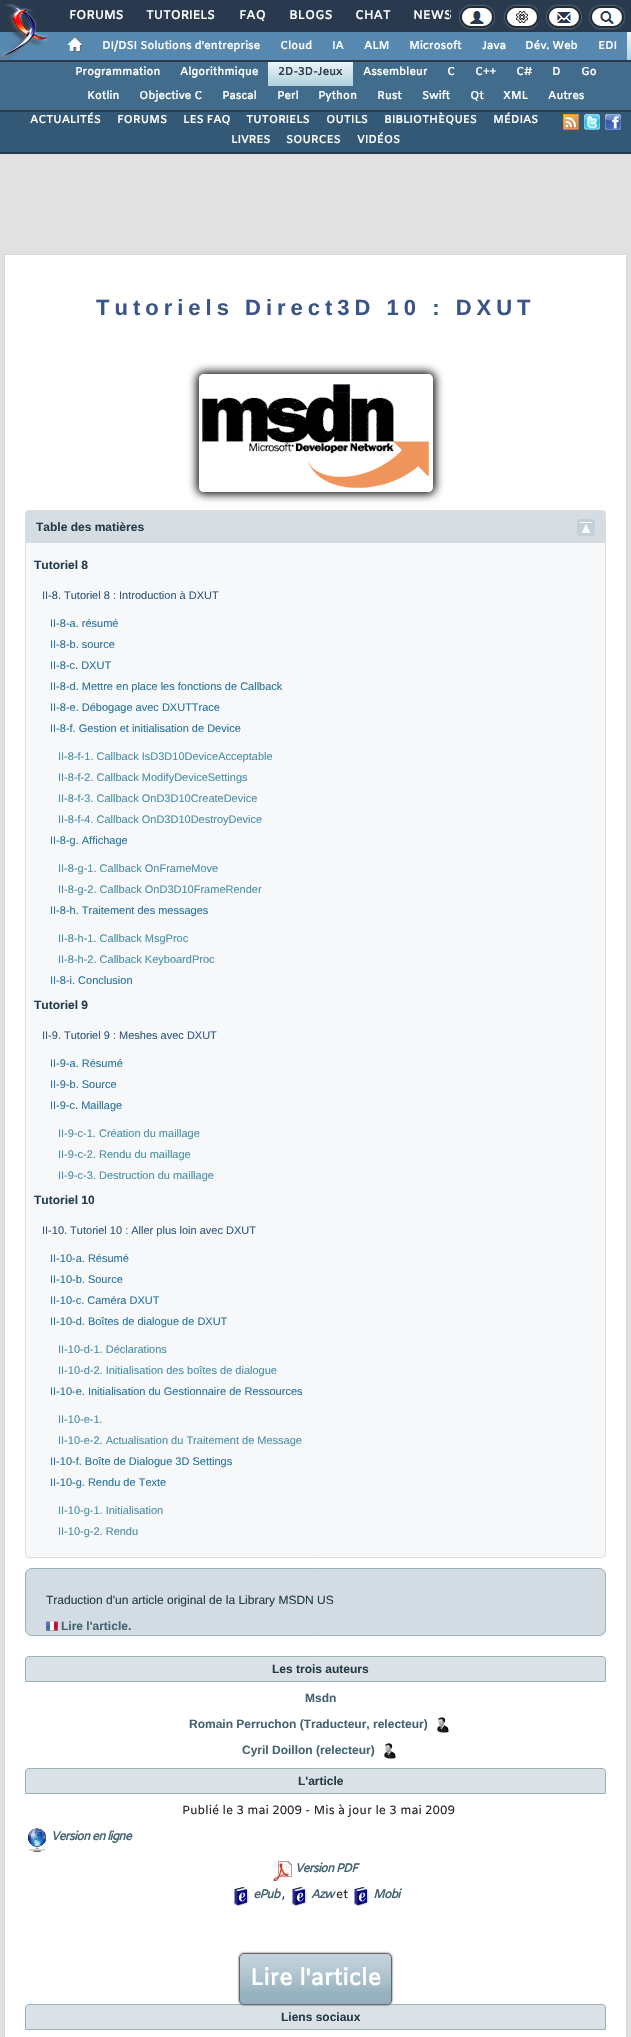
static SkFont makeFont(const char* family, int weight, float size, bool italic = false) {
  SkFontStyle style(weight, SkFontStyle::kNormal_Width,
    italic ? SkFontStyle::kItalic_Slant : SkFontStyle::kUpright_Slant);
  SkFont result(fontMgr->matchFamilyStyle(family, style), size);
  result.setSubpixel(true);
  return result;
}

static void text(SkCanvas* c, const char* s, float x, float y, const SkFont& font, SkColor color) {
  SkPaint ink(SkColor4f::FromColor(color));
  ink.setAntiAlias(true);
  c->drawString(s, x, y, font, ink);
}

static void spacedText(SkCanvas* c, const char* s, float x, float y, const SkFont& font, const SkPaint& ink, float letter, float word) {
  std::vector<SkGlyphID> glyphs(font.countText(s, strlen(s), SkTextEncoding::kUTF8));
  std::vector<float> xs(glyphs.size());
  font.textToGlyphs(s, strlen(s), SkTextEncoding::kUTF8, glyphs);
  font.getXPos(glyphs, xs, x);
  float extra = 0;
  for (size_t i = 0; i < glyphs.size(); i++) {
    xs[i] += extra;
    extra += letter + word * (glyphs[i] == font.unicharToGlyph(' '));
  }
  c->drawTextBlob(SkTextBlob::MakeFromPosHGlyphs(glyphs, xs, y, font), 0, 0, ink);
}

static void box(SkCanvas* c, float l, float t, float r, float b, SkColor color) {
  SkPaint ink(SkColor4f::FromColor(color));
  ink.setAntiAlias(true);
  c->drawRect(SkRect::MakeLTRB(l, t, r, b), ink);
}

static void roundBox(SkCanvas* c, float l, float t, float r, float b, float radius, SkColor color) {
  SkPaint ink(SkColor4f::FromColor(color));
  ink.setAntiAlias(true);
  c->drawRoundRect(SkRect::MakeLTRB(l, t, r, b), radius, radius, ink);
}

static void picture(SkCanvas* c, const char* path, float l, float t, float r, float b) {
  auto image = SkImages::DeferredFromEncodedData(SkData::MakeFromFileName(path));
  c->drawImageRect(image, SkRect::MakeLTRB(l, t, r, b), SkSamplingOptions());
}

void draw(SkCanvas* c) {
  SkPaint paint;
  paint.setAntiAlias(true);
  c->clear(0xff293a4e);
  box(c, 0, 32, 627, 60, 0xff5789b0);
  picture(c, "img_01.png", 0, 4, 48, 59);
  SkFont face1 = makeFont("Amiko", 700, 12.25f);
  paint.setColor(0xffffffff);
  spacedText(c, "FORUMS", 69, 19, face1, paint, -0.25f, 0);
  spacedText(c, "TUTORIELS", 146, 19, face1, paint, -0.25f, 0);
  text(c, "FAQ", 239, 19, face1, 0xffffffff);
  text(c, "BLOGS", 289, 19, face1, 0xffffffff);
  text(c, "CHAT", 355, 19, face1, 0xffffffff);
  text(c, "NEWS", 413, 19, face1, 0xffffffff);
  box(c, 449, 10, 450, 18, 0xff293a4e);
  picture(c, "img_02.png", 459, 4, 495, 30);
  picture(c, "img_03.png", 503, 4, 538, 30);
  picture(c, "img_04.png", 546, 4, 582, 30);
  picture(c, "img_05.png", 589, 4, 625, 30);
  picture(c, "img_06.png", 67, 38, 83, 52);
  SkFont face2 = makeFont("Amiko", 700, 11);
  text(c, "DI/DSI Solutions d'entreprise", 102, 49, face2, 0xffffffff);
  text(c, "Cloud", 280, 49, face2, 0xffffffff);
  text(c, "IA", 332, 49, face2, 0xffffffff);
  text(c, "ALM", 364, 49, face2, 0xffffffff);
  text(c, "Microsoft", 409, 49, face2, 0xffffffff);
  text(c, "Java", 482, 49, face2, 0xffffffff);
  text(c, "Dév. Web", 525, 49, face2, 0xffffffff);
  text(c, "EDI", 598, 49, face2, 0xffffffff);
  {
    const SkColor colors[] = {0xffeaf5f8, 0xffd8e6ec, 0xffaed1dd};
    const float stops[] = {0, 0.37f, 1};
    const SkPoint ends[] = {{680, 32}, {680, 60}};
    paint.setShader(SkGradientShader::MakeLinear(ends, colors, stops, 3, SkTileMode::kClamp));
    paint.setAlpha(255);
  }
  c->drawRect(SkRect::MakeLTRB(627, 32, 631, 60), paint);
  box(c, 0, 62, 631, 110, 0xff426c8c);
  text(c, "Programmation", 75, 75, face2, 0xffffffff);
  text(c, "Algorithmique", 180, 75, face2, 0xffffffff);
  {
    const SkColor colors[] = {0xffeaf5f8, 0xffd8e6ec, 0xffaed1dd};
    const float stops[] = {0, 0.37f, 1};
    const SkPoint ends[] = {{311, 62}, {311, 86}};
    paint.setShader(SkGradientShader::MakeLinear(ends, colors, stops, 3, SkTileMode::kClamp));
    paint.setAlpha(255);
  }
  c->drawRect(SkRect::MakeLTRB(268, 62, 353, 86), paint);
  text(c, "2D-3D-Jeux", 278, 75, face2, 0xff293a4e);
  text(c, "Assembleur", 363, 75, face2, 0xffffffff);
  text(c, "C", 447, 75, face2, 0xffffffff);
  text(c, "C++", 475, 75, face2, 0xffffffff);
  text(c, "C#", 516, 75, face2, 0xffffffff);
  text(c, "D", 552, 75, face2, 0xffffffff);
  text(c, "Go", 581, 75, face2, 0xffffffff);
  text(c, "Kotlin", 87, 99, face2, 0xffffffff);
  text(c, "Objective C", 139, 99, face2, 0xffffffff);
  text(c, "Pascal", 222, 99, face2, 0xffffffff);
  text(c, "Perl", 277, 99, face2, 0xffffffff);
  text(c, "Python", 318, 99, face2, 0xffffffff);
  text(c, "Rust", 377, 99, face2, 0xffffffff);
  text(c, "Swift", 422, 99, face2, 0xffffffff);
  text(c, "Qt", 470, 99, face2, 0xffffffff);
  text(c, "XML", 503, 99, face2, 0xffffffff);
  text(c, "Autres", 548, 99, face2, 0xffffffff);
  box(c, 0, 112, 631, 152, 0xff345976);
  text(c, "ACTUALITÉS", 30, 123, face2, 0xffffffff);
  text(c, "FORUMS", 117, 123, face2, 0xffffffff);
  text(c, "LES FAQ", 183, 123, face2, 0xffffffff);
  text(c, "TUTORIELS", 246, 123, face2, 0xffffffff);
  text(c, "OUTILS", 326, 123, face2, 0xffffffff);
  text(c, "BIBLIOTHÈQUES", 384, 123, face2, 0xffffffff);
  text(c, "MÉDIAS", 493, 123, face2, 0xffffffff);
  text(c, "LIVRES", 231, 143, face2, 0xffffffff);
  text(c, "SOURCES", 286, 143, face2, 0xffffffff);
  text(c, "VIDÉOS", 357, 143, face2, 0xffffffff);
  picture(c, "img_07.png", 563, 114, 579, 130);
  picture(c, "img_08.png", 584, 114, 600, 130);
  picture(c, "img_09.png", 605, 114, 621, 130);
  box(c, 0, 154, 631, 2037, 0xffe1e1e2);
  paint.setShader(nullptr);
  paint.setColor(0xffffffff);
  c->drawRect(SkRect::MakeLTRB(4.5f, 254.5f, 626.5f, 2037.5f), paint);
  paint.setStyle(SkPaint::kStroke_Style);
  paint.setStrokeWidth(1);
  paint.setColor(0xffd7d9db);
  c->drawRect(SkRect::MakeLTRB(4.5f, 254.5f, 626.5f, 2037.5f), paint);
  SkFont face3 = makeFont("Liberation Sans", 700, 22);
  paint.setStyle(SkPaint::kFill_Style);
  paint.setColor(0xff3a5486);
  spacedText(c, "Tutoriels Direct3D 10 : DXUT", 96, 315, face3, paint, 5, 0);
  c->save();
  c->clipPath(SkPathBuilder(SkPathFillType::kEvenOdd).moveTo(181, 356).lineTo(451, 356).lineTo(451, 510).lineTo(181, 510).close().moveTo(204, 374).lineTo(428, 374).cubicTo(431, 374, 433, 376, 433, 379).lineTo(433, 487).cubicTo(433, 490, 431, 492, 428, 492).lineTo(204, 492).cubicTo(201, 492, 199, 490, 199, 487).lineTo(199, 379).cubicTo(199, 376, 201, 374, 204, 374).close().detach(), true);
  paint.setColor(0xff000000);
  paint.setMaskFilter(SkMaskFilter::MakeBlur(kNormal_SkBlurStyle, 5));
  c->drawRoundRect(SkRect::MakeLTRB(197, 372, 435, 494), 7, 7, paint);
  paint.setMaskFilter(nullptr);
  c->restore();
  picture(c, "img_10.png", 202, 384, 429, 489);
  paint.setColor(0xfff6f8f9);
  c->drawRoundRect(SkRect::MakeLTRB(25.5f, 510.5f, 605.5f, 1557.5f), 3.5f, 3.5f, paint);
  paint.setStyle(SkPaint::kStroke_Style);
  paint.setColor(0xffdddddd);
  c->drawRoundRect(SkRect::MakeLTRB(25.5f, 510.5f, 605.5f, 1557.5f), 3.5f, 3.5f, paint);
  paint.setStyle(SkPaint::kFill_Style);
  paint.setColor(0x339bb1bc);
  c->drawPath(SkPathBuilder().moveTo(30, 511).lineTo(601, 511).cubicTo(603, 511, 605, 513, 605, 515).lineTo(605, 543).lineTo(26, 543).lineTo(26, 515).cubicTo(26, 513, 28, 511, 30, 511).close().detach(), paint);
  box(c, 26, 511, 605, 543, 0x339bafbe);
  SkFont face4 = makeFont("Liberation Sans", 700, 12);
  text(c, "Table des matières", 36, 531, face4, 0xff243c47);
  roundBox(c, 577, 519, 595, 536, 3, 0xffc4d0d8);
  picture(c, "img_11.png", 580, 522, 592, 533);
  text(c, "Tutoriel 8", 34, 569, face4, 0xff203d4f);
  SkFont face5 = makeFont("Liberation Sans", 400, 11);
  text(c, "II-8. Tutoriel 8 : Introduction à DXUT", 42, 599, face5, 0xff30577c);
  text(c, "II-8-a. résumé", 50, 627, face5, 0xff27729d);
  text(c, "II-8-b. source", 50, 648, face5, 0xff27729d);
  text(c, "II-8-c. DXUT", 50, 669, face5, 0xff27729d);
  text(c, "II-8-d. Mettre en place les fonctions de Callback", 50, 690, face5, 0xff27729d);
  text(c, "II-8-e. Débogage avec DXUTTrace", 50, 711, face5, 0xff27729d);
  text(c, "II-8-f. Gestion et initialisation de Device", 50, 732, face5, 0xff27729d);
  text(c, "II-8-f-1. Callback IsD3D10DeviceAcceptable", 58, 760, face5, 0xff4a8fa8);
  text(c, "II-8-f-2. Callback ModifyDeviceSettings", 58, 781, face5, 0xff4a8fa8);
  text(c, "II-8-f-3. Callback OnD3D10CreateDevice", 58, 802, face5, 0xff4a8fa8);
  text(c, "II-8-f-4. Callback OnD3D10DestroyDevice", 58, 823, face5, 0xff4a8fa8);
  text(c, "II-8-g. Affichage", 50, 844, face5, 0xff27729d);
  text(c, "II-8-g-1. Callback OnFrameMove", 58, 872, face5, 0xff4a8fa8);
  text(c, "II-8-g-2. Callback OnD3D10FrameRender", 58, 893, face5, 0xff4a8fa8);
  text(c, "II-8-h. Traitement des messages", 50, 914, face5, 0xff27729d);
  text(c, "II-8-h-1. Callback MsgProc", 58, 942, face5, 0xff4a8fa8);
  text(c, "II-8-h-2. Callback KeyboardProc", 58, 963, face5, 0xff4a8fa8);
  text(c, "II-8-i. Conclusion", 50, 984, face5, 0xff27729d);
  text(c, "Tutoriel 9", 34, 1009, face4, 0xff203d4f);
  text(c, "II-9. Tutoriel 9 : Meshes avec DXUT", 42, 1039, face5, 0xff30577c);
  text(c, "II-9-a. Résumé", 50, 1067, face5, 0xff27729d);
  text(c, "II-9-b. Source", 50, 1088, face5, 0xff27729d);
  text(c, "II-9-c. Maillage", 50, 1109, face5, 0xff27729d);
  text(c, "II-9-c-1. Création du maillage", 58, 1137, face5, 0xff4a8fa8);
  text(c, "II-9-c-2. Rendu du maillage", 58, 1158, face5, 0xff4a8fa8);
  text(c, "II-9-c-3. Destruction du maillage", 58, 1179, face5, 0xff4a8fa8);
  text(c, "Tutoriel 10", 34, 1204, face4, 0xff203d4f);
  text(c, "II-10. Tutoriel 10 : Aller plus loin avec DXUT", 42, 1234, face5, 0xff30577c);
  text(c, "II-10-a. Résumé", 50, 1262, face5, 0xff27729d);
  text(c, "II-10-b. Source", 50, 1283, face5, 0xff27729d);
  text(c, "II-10-c. Caméra DXUT", 50, 1304, face5, 0xff27729d);
  text(c, "II-10-d. Boîtes de dialogue de DXUT", 50, 1325, face5, 0xff27729d);
  text(c, "II-10-d-1. Déclarations", 58, 1353, face5, 0xff4a8fa8);
  text(c, "II-10-d-2. Initialisation des boîtes de dialogue", 58, 1374, face5, 0xff4a8fa8);
  text(c, "II-10-e. Initialisation du Gestionnaire de Ressources", 50, 1395, face5, 0xff27729d);
  text(c, "II-10-e-1.", 58, 1423, face5, 0xff4a8fa8);
  text(c, "II-10-e-2. Actualisation du Traitement de Message", 58, 1444, face5, 0xff4a8fa8);
  text(c, "II-10-f. Boîte de Dialogue 3D Settings", 50, 1465, face5, 0xff27729d);
  text(c, "II-10-g. Rendu de Texte", 50, 1486, face5, 0xff27729d);
  text(c, "II-10-g-1. Initialisation", 58, 1514, face5, 0xff4a8fa8);
  text(c, "II-10-g-2. Rendu", 58, 1535, face5, 0xff4a8fa8);
  roundBox(c, 25, 1568, 606, 1636, 7, 0xffe1e8eb);
  picture(c, "img_12.png", 25, 1568, 606, 1636);
  paint.setStyle(SkPaint::kStroke_Style);
  paint.setColor(0xff9bb1bc);
  c->drawRoundRect(SkRect::MakeLTRB(25.5f, 1568.5f, 605.5f, 1635.5f), 6.5f, 6.5f, paint);
  SkFont face6 = makeFont("Liberation Sans", 400, 12);
  text(c, "Traduction d'un article original de la Library MSDN US", 46, 1604, face6, 0xff243c47);
  picture(c, "img_13.png", 46, 1621, 58, 1631);
  text(c, "Lire l'article.", 61, 1630, face4, 0xff446372);
  paint.setStyle(SkPaint::kFill_Style);
  paint.setColor(0xffebeff2);
  c->drawPath(SkPathBuilder().moveTo(29, 1656).lineTo(602, 1656).cubicTo(604, 1656, 606, 1658, 606, 1660).lineTo(606, 1682).lineTo(25, 1682).lineTo(25, 1660).cubicTo(25, 1658, 27, 1656, 29, 1656).close().detach(), paint);
  box(c, 25, 1657, 606, 1681, 0x339bafbe);
  paint.setStyle(SkPaint::kStroke_Style);
  paint.setColor(0xff9bb1bc);
  c->drawPath(SkPathBuilder().moveTo(29, 1656.5f).lineTo(602, 1656.5f).cubicTo(604, 1656.5f, 605.5f, 1658, 605.5f, 1660).lineTo(605.5f, 1681.5f).lineTo(25.5f, 1681.5f).lineTo(25.5f, 1660).cubicTo(25.5f, 1658, 27, 1656.5f, 29, 1656.5f).close().detach(), paint);
  text(c, "Les trois auteurs", 272, 1673, face4, 0xff243c47);
  text(c, "Msdn", 305, 1702, face4, 0xff446372);
  text(c, "Romain Perruchon (Traducteur, relecteur)", 189, 1728, face4, 0xff446372);
  picture(c, "img_14.png", 437, 1717, 449, 1733);
  text(c, "Cyril Doillon (relecteur)", 242, 1754, face4, 0xff446372);
  picture(c, "img_14.png", 384, 1743, 396, 1759);
  paint.setStyle(SkPaint::kFill_Style);
  paint.setColor(0xffebeff2);
  c->drawPath(SkPathBuilder().moveTo(29, 1768).lineTo(602, 1768).cubicTo(604, 1768, 606, 1770, 606, 1772).lineTo(606, 1794).lineTo(25, 1794).lineTo(25, 1772).cubicTo(25, 1770, 27, 1768, 29, 1768).close().detach(), paint);
  box(c, 25, 1769, 606, 1793, 0x339bafbe);
  paint.setStyle(SkPaint::kStroke_Style);
  paint.setColor(0xff9bb1bc);
  c->drawPath(SkPathBuilder().moveTo(29, 1768.5f).lineTo(602, 1768.5f).cubicTo(604, 1768.5f, 605.5f, 1770, 605.5f, 1772).lineTo(605.5f, 1793.5f).lineTo(25.5f, 1793.5f).lineTo(25.5f, 1772).cubicTo(25.5f, 1770, 27, 1768.5f, 29, 1768.5f).close().detach(), paint);
  text(c, "L'article", 298, 1785, face4, 0xff243c47);
  SkFont face7 = makeFont("Amiko", 400, 12);
  text(c, "Publié le 3 mai 2009 - Mis à jour le 3 mai 2009", 182, 1814, face7, 0xff212529);
  picture(c, "img_15.png", 28, 1828, 46, 1852);
  SkFont face8 = makeFont("Amiko", 700, 12, true);
  paint.setStyle(SkPaint::kFill_Style);
  paint.setColor(0xff446372);
  spacedText(c, "Version en ligne", 51, 1840, face8, paint, -1, 0);
  picture(c, "img_16.png", 273, 1861, 293, 1881);
  spacedText(c, "Version PDF", 295, 1872, face8, paint, -1, 0);
  picture(c, "img_17.png", 233, 1887, 250, 1907);
  spacedText(c, "ePub", 253, 1898, face8, paint, -1, 0);
  text(c, ",", 282, 1898, face7, 0xff212529);
  picture(c, "img_17.png", 291, 1887, 308, 1907);
  spacedText(c, "Azw", 311, 1898, face8, paint, -1, 0);
  text(c, "et", 336, 1898, face7, 0xff212529);
  picture(c, "img_17.png", 353, 1887, 370, 1907);
  spacedText(c, "Mobi", 373, 1898, face8, paint, -1, 0);
  paint.setColor(0xffebeff2);
  c->drawPath(SkPathBuilder().moveTo(29, 2004).lineTo(602, 2004).cubicTo(604, 2004, 606, 2006, 606, 2008).lineTo(606, 2030).lineTo(25, 2030).lineTo(25, 2008).cubicTo(25, 2006, 27, 2004, 29, 2004).close().detach(), paint);
  box(c, 25, 2005, 606, 2029, 0x339bafbe);
  paint.setStyle(SkPaint::kStroke_Style);
  paint.setColor(0xff9bb1bc);
  c->drawPath(SkPathBuilder().moveTo(29, 2004.5f).lineTo(602, 2004.5f).cubicTo(604, 2004.5f, 605.5f, 2006, 605.5f, 2008).lineTo(605.5f, 2029.5f).lineTo(25.5f, 2029.5f).lineTo(25.5f, 2008).cubicTo(25.5f, 2006, 27, 2004.5f, 29, 2004.5f).close().detach(), paint);
  c->save();
  c->clipPath(SkPathBuilder(SkPathFillType::kEvenOdd).moveTo(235, 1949).lineTo(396, 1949).lineTo(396, 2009).lineTo(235, 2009).close().moveTo(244, 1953).lineTo(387, 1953).cubicTo(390, 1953, 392, 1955, 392, 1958).lineTo(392, 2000).cubicTo(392, 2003, 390, 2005, 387, 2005).lineTo(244, 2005).cubicTo(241, 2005, 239, 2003, 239, 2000).lineTo(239, 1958).cubicTo(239, 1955, 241, 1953, 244, 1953).close().detach(), true);
  paint.setStyle(SkPaint::kFill_Style);
  paint.setColor(0xff343434);
  paint.setMaskFilter(SkMaskFilter::MakeBlur(kNormal_SkBlurStyle, 1));
  c->drawRoundRect(SkRect::MakeLTRB(239, 1953, 392, 2005), 5, 5, paint);
  paint.setMaskFilter(nullptr);
  c->restore();
  roundBox(c, 239, 1953, 392, 2005, 5, 0x99a8bfcb);
  c->save();
  c->clipPath(SkPathBuilder().moveTo(244, 1953).lineTo(387, 1953).cubicTo(390, 1953, 392, 1955, 392, 1958).lineTo(392, 2000).cubicTo(392, 2003, 390, 2005, 387, 2005).lineTo(244, 2005).cubicTo(241, 2005, 239, 2003, 239, 2000).lineTo(239, 1958).cubicTo(239, 1955, 241, 1953, 244, 1953).close().detach(), true);
  {
    const SkColor colors[] = {0xff95b1bf, 0x33a8bfcb};
    const float stops[] = {0.2f, 1};
    const SkPoint ends[] = {{316, 2004}, {316, 1954}};
    paint.setShader(SkGradientShader::MakeLinear(ends, colors, stops, 2, SkTileMode::kClamp));
    paint.setAlpha(255);
  }
  c->drawRect(SkRect::MakeLTRB(239, 1954, 392, 2004), paint);
  c->restore();
  paint.setStyle(SkPaint::kStroke_Style);
  paint.setShader(nullptr);
  paint.setColor(0xff656565);
  c->drawRoundRect(SkRect::MakeLTRB(239.5f, 1953.5f, 391.5f, 2004.5f), 4.5f, 4.5f, paint);
  SkFont face9 = makeFont("Amiko", 700, 22.75f);
  text(c, "Lire l'article", 250, 1985, face9, 0xffffffff);
  text(c, "Liens sociaux", 281, 2021, face4, 0xff243c47);
}
